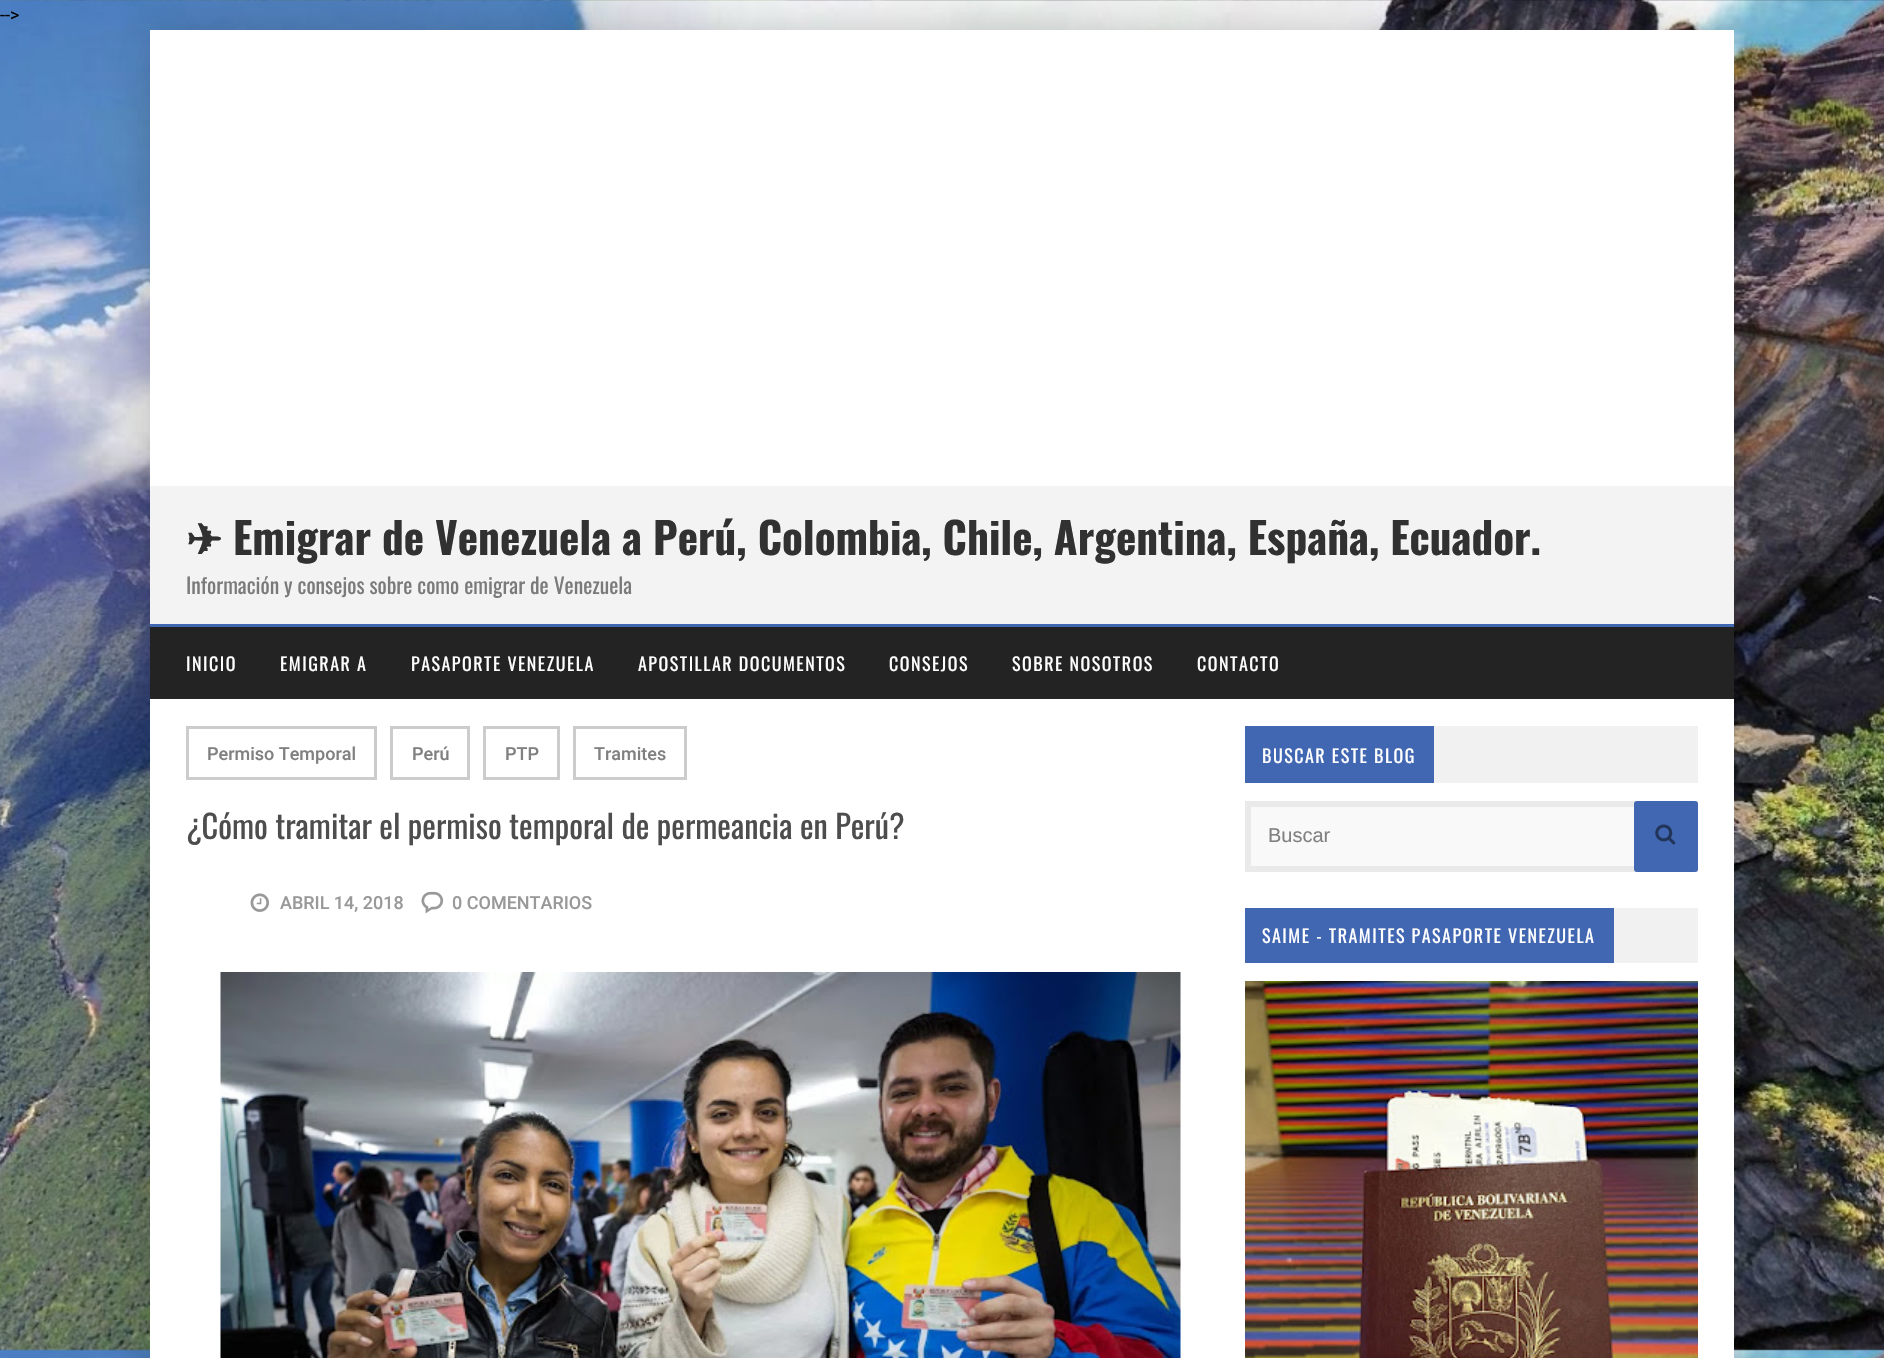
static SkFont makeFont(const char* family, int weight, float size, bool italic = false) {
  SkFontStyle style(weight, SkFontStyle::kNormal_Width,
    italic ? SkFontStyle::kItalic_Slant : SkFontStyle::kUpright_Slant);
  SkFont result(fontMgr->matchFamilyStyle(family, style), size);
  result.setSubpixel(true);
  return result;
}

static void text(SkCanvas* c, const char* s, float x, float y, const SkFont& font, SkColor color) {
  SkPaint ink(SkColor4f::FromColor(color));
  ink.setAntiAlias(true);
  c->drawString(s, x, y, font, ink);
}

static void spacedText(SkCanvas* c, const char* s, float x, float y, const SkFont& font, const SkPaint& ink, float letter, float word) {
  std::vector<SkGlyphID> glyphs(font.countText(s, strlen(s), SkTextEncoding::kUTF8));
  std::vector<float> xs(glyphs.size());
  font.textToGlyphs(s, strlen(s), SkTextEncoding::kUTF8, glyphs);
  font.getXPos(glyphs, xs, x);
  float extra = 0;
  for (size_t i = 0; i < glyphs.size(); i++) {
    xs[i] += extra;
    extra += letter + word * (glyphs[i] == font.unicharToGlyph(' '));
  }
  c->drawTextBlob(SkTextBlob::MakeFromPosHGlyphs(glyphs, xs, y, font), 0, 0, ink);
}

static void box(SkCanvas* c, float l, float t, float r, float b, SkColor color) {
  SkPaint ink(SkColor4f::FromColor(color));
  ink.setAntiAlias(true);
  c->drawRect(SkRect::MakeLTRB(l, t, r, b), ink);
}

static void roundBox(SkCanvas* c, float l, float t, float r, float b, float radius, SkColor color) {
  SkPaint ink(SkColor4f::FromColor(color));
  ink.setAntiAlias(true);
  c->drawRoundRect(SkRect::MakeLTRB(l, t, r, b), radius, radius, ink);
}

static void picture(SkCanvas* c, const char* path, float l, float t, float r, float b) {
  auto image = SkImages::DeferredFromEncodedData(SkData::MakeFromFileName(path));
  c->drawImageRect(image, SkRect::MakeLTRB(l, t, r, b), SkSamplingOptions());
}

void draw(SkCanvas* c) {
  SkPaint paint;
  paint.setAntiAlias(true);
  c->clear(0xffffffff);
  picture(c, "img_01.png", 0, 0, 1884, 1358);
  SkFont face1 = makeFont("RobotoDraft", 400, 18);
  text(c, "-->", 0, 21, face1, 0xff000000);
  paint.setColor(0x33000000);
  paint.setMaskFilter(SkMaskFilter::MakeBlur(kNormal_SkBlurStyle, 22.5f));
  c->drawRect(SkRect::MakeLTRB(150, 30, 1734, 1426), paint);
  paint.setMaskFilter(nullptr);
  box(c, 150, 30, 1734, 1358, 0xffffffff);
  box(c, 150, 486, 1734, 624, 0xfff3f3f3);
  SkFont face2 = makeFont("DejaVu Sans", 700, 43.2f);
  text(c, "✈", 186, 555, face2, 0xff313131);
  SkFont face3 = makeFont("Oswald", 700, 43.2f);
  text(c, "Emigrar de Venezuela a Perú, Colombia, Chile, Argentina, España, Ecuador.", 233, 555, face3, 0xff313131);
  SkFont face4 = makeFont("Oswald", 400, 21.6f);
  text(c, "Información y consejos sobre como emigrar de Venezuela", 186, 594, face4, 0xff7a7a7a);
  box(c, 150, 624, 1734, 627, 0xff4267b2);
  box(c, 150, 627, 1734, 699, 0xff232323);
  SkFont face5 = makeFont("Oswald", 400, 18);
  paint.setColor(0xffffffff);
  spacedText(c, "INICIO", 186, 671, face5, paint, 1.5f, 0);
  spacedText(c, "EMIGRAR A", 280, 671, face5, paint, 1.5f, 0);
  spacedText(c, "PASAPORTE VENEZUELA", 411, 671, face5, paint, 1.5f, 0);
  spacedText(c, "APOSTILLAR DOCUMENTOS", 638, 671, face5, paint, 1.5f, 0);
  spacedText(c, "CONSEJOS", 889, 671, face5, paint, 1.5f, 0);
  spacedText(c, "SOBRE NOSOTROS", 1012, 671, face5, paint, 1.5f, 0);
  spacedText(c, "CONTACTO", 1197, 671, face5, paint, 1.5f, 0);
  paint.setStyle(SkPaint::kStroke_Style);
  paint.setStrokeWidth(3);
  paint.setColor(0xffcccccc);
  c->drawRect(SkRect::MakeLTRB(187.5f, 727.5f, 375.5f, 778.5f), paint);
  SkFont face6 = makeFont("RobotoDraft", 500, 18);
  text(c, "Permiso Temporal", 207, 760, face6, 0xff808080);
  c->drawRect(SkRect::MakeLTRB(391.5f, 727.5f, 468.5f, 778.5f), paint);
  text(c, "Perú", 412, 760, face6, 0xff808080);
  c->drawRect(SkRect::MakeLTRB(484.5f, 727.5f, 558.5f, 778.5f), paint);
  text(c, "PTP", 505, 760, face6, 0xff808080);
  c->drawRect(SkRect::MakeLTRB(574.5f, 727.5f, 685.5f, 778.5f), paint);
  text(c, "Tramites", 594, 760, face6, 0xff808080);
  SkFont face7 = makeFont("Oswald", 400, 32.4f);
  text(c, "¿Cómo tramitar el permiso temporal de permeancia en Perú?", 186, 839, face7, 0xff4d4d4d);
  picture(c, "img_02.png", 250, 893, 269, 912);
  text(c, "ABRIL 14, 2018", 280, 909, face6, 0xff999999);
  picture(c, "img_03.png", 421, 891, 444, 914);
  text(c, "0 COMENTARIOS", 452, 909, face6, 0xff999999);
  picture(c, "img_04.png", 220, 972, 1181, 1358);
  box(c, 1434, 726, 1698, 783, 0xfff1f1f1);
  box(c, 1245, 726, 1434, 783, 0xff4267b2);
  paint.setStyle(SkPaint::kFill_Style);
  paint.setColor(0xffffffff);
  spacedText(c, "BUSCAR ESTE BLOG", 1262, 763, face5, paint, 1.5f, 0);
  box(c, 1251, 807, 1634, 866, 0xfff9f9f9);
  paint.setStyle(SkPaint::kStroke_Style);
  paint.setStrokeWidth(6);
  paint.setColor(0xffeaeaea);
  c->drawRect(SkRect::MakeLTRB(1248, 804, 1695, 869), paint);
  SkFont face8 = makeFont("Liberation Sans", 400, 20);
  text(c, "Buscar", 1268, 842, face8, 0xff808080);
  roundBox(c, 1634, 801, 1698, 872, 3, 0xff4267b2);
  picture(c, "img_05.png", 1655, 824, 1676, 845);
  box(c, 1614, 908, 1698, 963, 0xfff1f1f1);
  box(c, 1245, 908, 1614, 963, 0xff4267b2);
  paint.setStyle(SkPaint::kFill_Style);
  paint.setColor(0xffffffff);
  spacedText(c, "SAIME - TRAMITES PASAPORTE VENEZUELA", 1262, 943, face5, paint, 1.5f, 0);
  picture(c, "img_06.png", 1245, 981, 1698, 1358);
}
